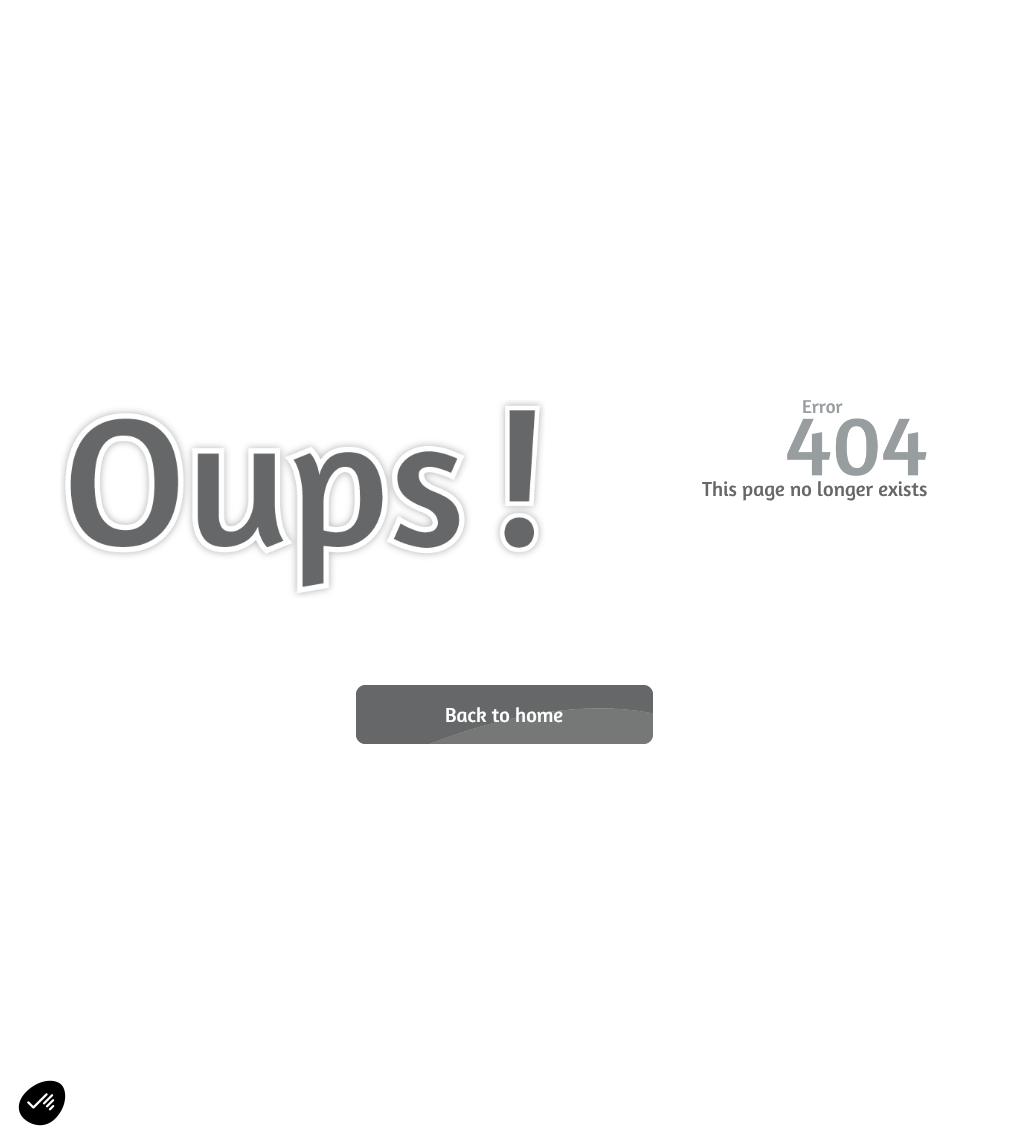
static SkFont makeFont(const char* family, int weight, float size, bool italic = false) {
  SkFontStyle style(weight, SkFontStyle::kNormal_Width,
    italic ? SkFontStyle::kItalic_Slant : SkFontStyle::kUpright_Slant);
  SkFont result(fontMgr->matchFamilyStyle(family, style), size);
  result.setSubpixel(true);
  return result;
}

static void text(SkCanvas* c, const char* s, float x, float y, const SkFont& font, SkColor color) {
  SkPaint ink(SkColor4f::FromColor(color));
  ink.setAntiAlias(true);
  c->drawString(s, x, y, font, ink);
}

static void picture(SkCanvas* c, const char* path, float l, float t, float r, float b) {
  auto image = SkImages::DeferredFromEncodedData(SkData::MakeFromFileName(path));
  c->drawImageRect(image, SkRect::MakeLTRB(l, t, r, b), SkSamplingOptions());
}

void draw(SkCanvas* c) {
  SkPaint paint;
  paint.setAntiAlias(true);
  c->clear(0xffffffff);
  picture(c, "img_01.png", 60, 400, 545, 598);
  SkFont face1 = makeFont("Amaranth", 400, 19);
  text(c, "Error", 802, 413, face1, 0xff989da0);
  picture(c, "img_02.png", 787, 418, 927, 476);
  SkFont face2 = makeFont("Amaranth", 400, 20.5f);
  text(c, "This page no longer exists", 702, 496, face2, 0xff656768);
  picture(c, "img_03.png", 356, 685, 653, 744);
  text(c, "Back to home", 445, 722, face2, 0xffffffff);
  picture(c, "img_04.png", 18, 1080, 66, 1126);
}
